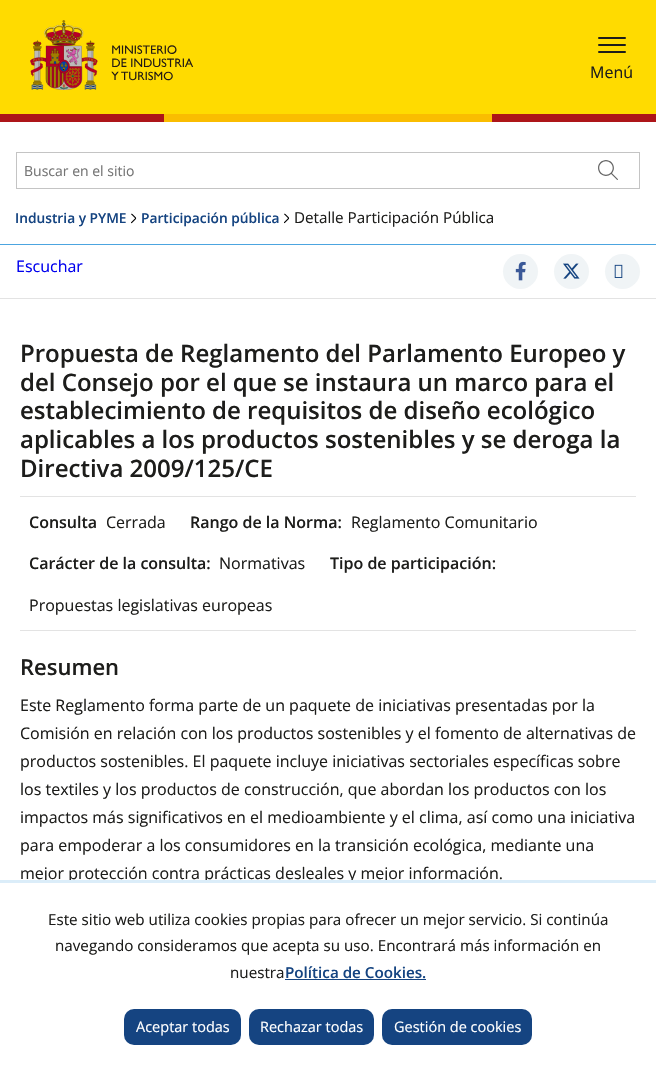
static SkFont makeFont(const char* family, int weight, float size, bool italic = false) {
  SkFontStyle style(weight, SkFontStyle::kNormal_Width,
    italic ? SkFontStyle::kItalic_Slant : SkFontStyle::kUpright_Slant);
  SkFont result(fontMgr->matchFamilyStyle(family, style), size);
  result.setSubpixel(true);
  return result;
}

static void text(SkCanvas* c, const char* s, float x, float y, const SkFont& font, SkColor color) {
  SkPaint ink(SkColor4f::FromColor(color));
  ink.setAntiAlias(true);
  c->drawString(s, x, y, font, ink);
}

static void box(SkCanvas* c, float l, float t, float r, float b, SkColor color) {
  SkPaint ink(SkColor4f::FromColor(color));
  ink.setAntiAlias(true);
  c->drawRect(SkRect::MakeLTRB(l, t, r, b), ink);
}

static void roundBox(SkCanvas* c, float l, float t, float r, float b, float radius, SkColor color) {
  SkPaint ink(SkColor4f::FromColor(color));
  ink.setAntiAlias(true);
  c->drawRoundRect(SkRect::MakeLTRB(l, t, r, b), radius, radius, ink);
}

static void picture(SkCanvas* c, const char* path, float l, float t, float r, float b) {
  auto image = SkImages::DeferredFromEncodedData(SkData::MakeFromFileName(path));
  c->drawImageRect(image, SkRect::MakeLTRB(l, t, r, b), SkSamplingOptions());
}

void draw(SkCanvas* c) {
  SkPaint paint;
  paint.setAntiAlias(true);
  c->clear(0xffffffff);
  box(c, 0, 0, 656, 114, 0xffffdb00);
  picture(c, "img_01.png", 30, 20, 194, 90);
  box(c, 0, 114, 164, 122, 0xffad1519);
  box(c, 164, 114, 492, 122, 0xfffabd00);
  box(c, 492, 114, 656, 122, 0xffad1519);
  roundBox(c, 598, 37, 626, 39, 1, 0xff1d1d1b);
  roundBox(c, 598, 44, 626, 46, 1, 0xff1d1d1b);
  roundBox(c, 598, 51, 626, 53, 1, 0xff1d1d1b);
  SkFont face1 = makeFont("Open Sans", 400, 16);
  text(c, "Menú", 590, 78, face1, 0xff1d1d1b);
  paint.setStyle(SkPaint::kStroke_Style);
  paint.setStrokeWidth(1);
  paint.setColor(0xffc4c4c4);
  c->drawRect(SkRect::MakeLTRB(16.5f, 152.5f, 639.5f, 188.5f), paint);
  SkFont face2 = makeFont("Open Sans", 400, 14);
  text(c, "Buscar en el sitio", 24, 176, face2, 0xff757575);
  picture(c, "img_02.png", 598, 160, 618, 180);
  box(c, 0, 244, 656, 245, 0xff4ca5e0);
  SkFont face3 = makeFont("Open Sans", 600, 13.75f);
  text(c, "Industria y PYME", 15, 223, face3, 0xff154481);
  picture(c, "img_03.png", 131, 213, 137, 224);
  text(c, "Participación pública", 141, 223, face3, 0xff154481);
  picture(c, "img_04.png", 284, 213, 290, 224);
  SkFont face4 = makeFont("Open Sans", 400, 15.2f);
  text(c, "Detalle Participación Pública", 294, 223, face4, 0xff1d1d1b);
  box(c, 0, 298, 656, 299, 0xffe3e3e3);
  text(c, "Escuchar", 16, 272, face1, 0xff0000ee);
  paint.setStyle(SkPaint::kFill_Style);
  paint.setColor(0xfff0f4f6);
  c->drawCircle(520.5f, 271.5f, 17.5f, paint);
  picture(c, "img_05.png", 515, 261, 526, 281);
  c->drawCircle(571.5f, 271.5f, 17.5f, paint);
  picture(c, "img_06.png", 563, 263, 580, 279);
  c->drawCircle(622.5f, 271.5f, 17.5f, paint);
  picture(c, "img_07.png", 614, 264, 623, 278);
  SkFont face5 = makeFont("Open Sans", 600, 24);
  text(c, "Propuesta de Reglamento del Parlamento Europeo y", 20, 362, face5, 0xff1d1d1b);
  text(c, "del Consejo por el que se instaura un marco para el", 20, 391, face5, 0xff1d1d1b);
  text(c, "establecimiento de requisitos de diseño ecológico", 20, 419, face5, 0xff1d1d1b);
  text(c, "aplicables a los productos sostenibles y se deroga la", 20, 448, face5, 0xff1d1d1b);
  text(c, "Directiva 2009/125/CE", 20, 477, face5, 0xff1d1d1b);
  box(c, 20, 496, 636, 497, 0xffe3e3e3);
  box(c, 20, 630, 636, 631, 0xffe3e3e3);
  SkFont face6 = makeFont("Open Sans", 600, 16);
  text(c, "Consulta", 29, 528, face6, 0xff1d1d1b);
  text(c, "Cerrada", 106, 528, face1, 0xff1d1d1b);
  text(c, "Rango de la Norma:", 190, 528, face6, 0xff1d1d1b);
  text(c, "Reglamento Comunitario", 351, 528, face1, 0xff1d1d1b);
  text(c, "Carácter de la consulta:", 29, 569, face6, 0xff1d1d1b);
  text(c, "Normativas", 219, 569, face1, 0xff1d1d1b);
  text(c, "Tipo de participación:", 330, 569, face6, 0xff1d1d1b);
  text(c, "Propuestas legislativas europeas", 29, 611, face1, 0xff1d1d1b);
  SkFont face7 = makeFont("Open Sans", 600, 22);
  text(c, "Resumen", 20, 675, face7, 0xff1d1d1b);
  text(c, "Este Reglamento forma parte de un paquete de iniciativas presentadas por la", 20, 711, face1, 0xff1d1d1b);
  text(c, "Comisión en relación con los productos sostenibles y el fomento de alternativas de", 20, 739, face1, 0xff1d1d1b);
  text(c, "productos sostenibles. El paquete incluye iniciativas sectoriales específicas sobre", 20, 767, face1, 0xff1d1d1b);
  text(c, "los textiles y los productos de construcción, que abordan los productos con los", 20, 795, face1, 0xff1d1d1b);
  text(c, "impactos más significativos en el medioambiente y el clima, así como una iniciativa", 20, 823, face1, 0xff1d1d1b);
  text(c, "para empoderar a los consumidores en la transición ecológica, mediante una", 20, 851, face1, 0xff1d1d1b);
  text(c, "mejor protección contra prácticas desleales y mejor información.", 20, 879, face1, 0xff1d1d1b);
  box(c, 0, 880, 656, 883, 0xffdbedf9);
  text(c, "Este sitio web utiliza cookies propias para ofrecer un mejor servicio. Si continúa", 48, 925, face4, 0xff1d1d1b);
  text(c, "navegando consideramos que acepta su uso. Encontrará más información en", 55, 951, face4, 0xff1d1d1b);
  text(c, "nuestra", 230, 978, face4, 0xff1d1d1b);
  SkFont face8 = makeFont("Open Sans", 600, 15.2f);
  text(c, "Política de Cookies.", 285, 978, face8, 0xff154481);
  box(c, 285, 979, 426, 980, 0xff154481);
  roundBox(c, 124, 1009, 241, 1045, 10, 0xff154481);
  SkFont face9 = makeFont("Open Sans", 400, 14.5f);
  text(c, "Aceptar todas", 136, 1032, face9, 0xffffffff);
  roundBox(c, 249, 1009, 374, 1045, 10, 0xff154481);
  text(c, "Rechazar todas", 260, 1032, face9, 0xffffffff);
  roundBox(c, 382, 1009, 532, 1045, 10, 0xff154481);
  text(c, "Gestión de cookies", 394, 1032, face9, 0xffffffff);
}
